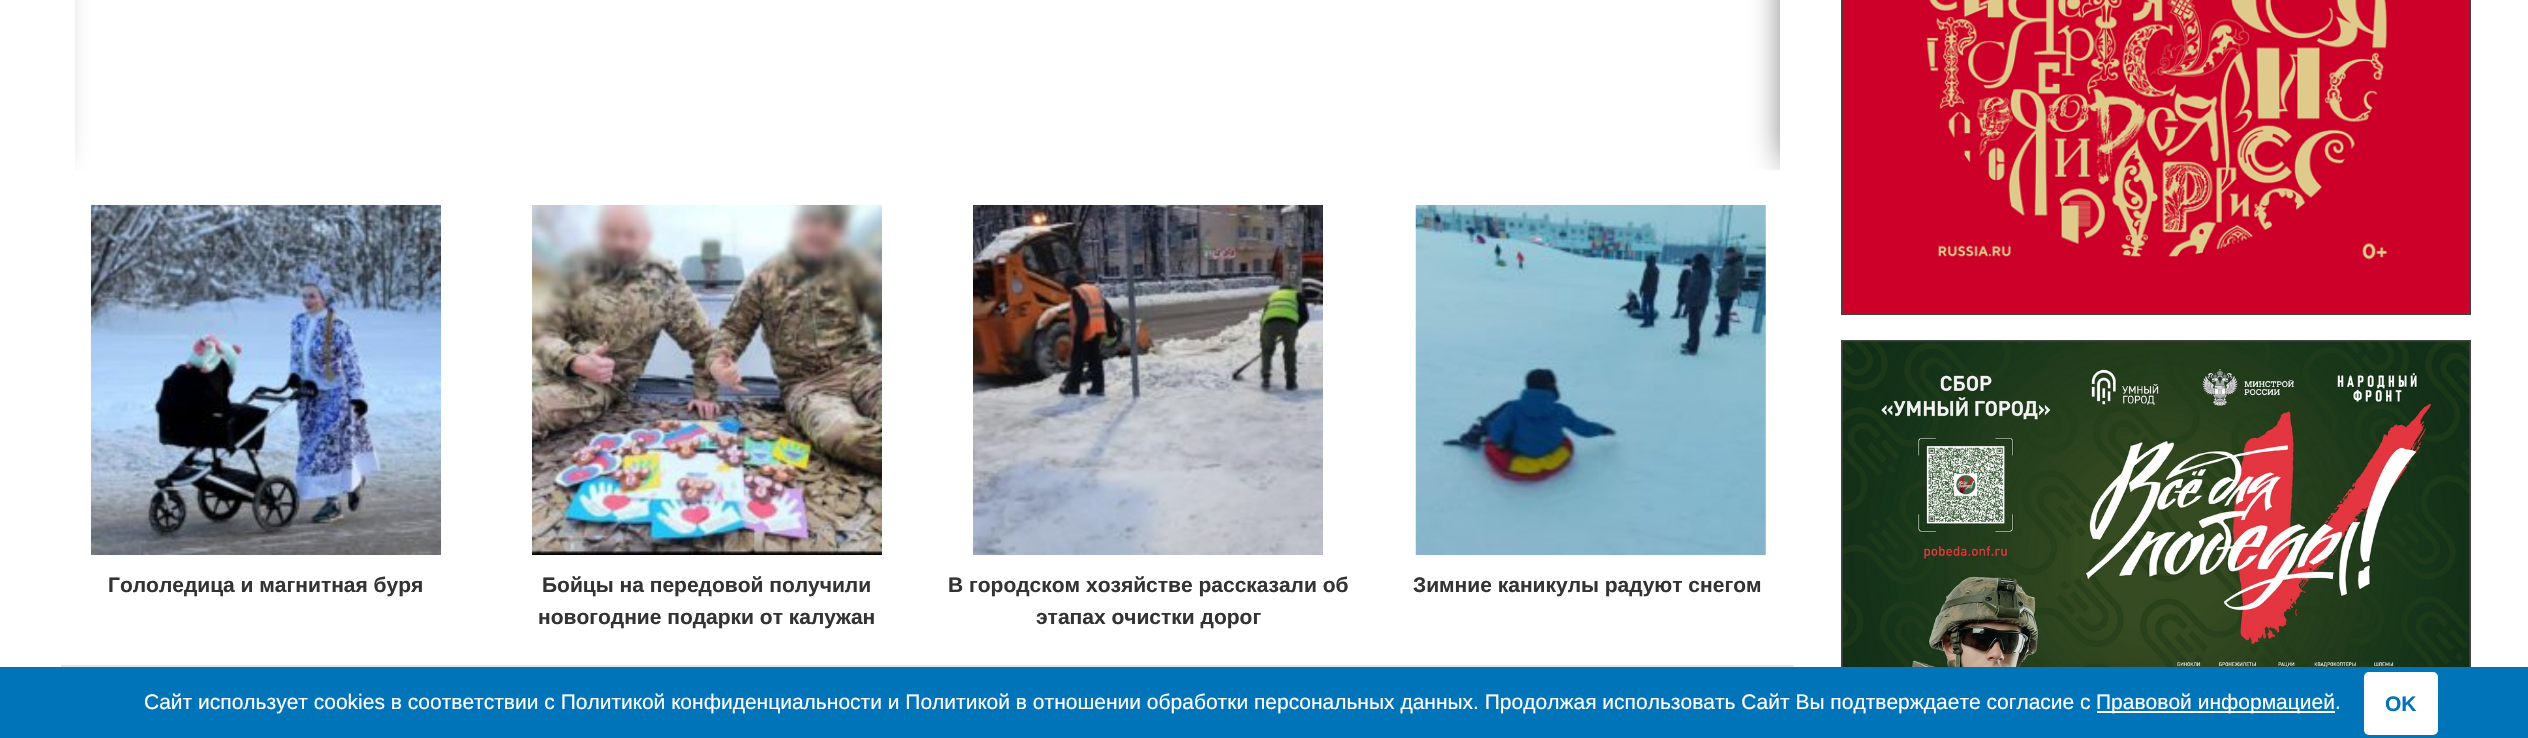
static SkFont makeFont(const char* family, int weight, float size, bool italic = false) {
  SkFontStyle style(weight, SkFontStyle::kNormal_Width,
    italic ? SkFontStyle::kItalic_Slant : SkFontStyle::kUpright_Slant);
  SkFont result(fontMgr->matchFamilyStyle(family, style), size);
  result.setSubpixel(true);
  return result;
}

static void text(SkCanvas* c, const char* s, float x, float y, const SkFont& font, SkColor color) {
  SkPaint ink(SkColor4f::FromColor(color));
  ink.setAntiAlias(true);
  c->drawString(s, x, y, font, ink);
}

static void box(SkCanvas* c, float l, float t, float r, float b, SkColor color) {
  SkPaint ink(SkColor4f::FromColor(color));
  ink.setAntiAlias(true);
  c->drawRect(SkRect::MakeLTRB(l, t, r, b), ink);
}

static void roundBox(SkCanvas* c, float l, float t, float r, float b, float radius, SkColor color) {
  SkPaint ink(SkColor4f::FromColor(color));
  ink.setAntiAlias(true);
  c->drawRoundRect(SkRect::MakeLTRB(l, t, r, b), radius, radius, ink);
}

static void picture(SkCanvas* c, const char* path, float l, float t, float r, float b) {
  auto image = SkImages::DeferredFromEncodedData(SkData::MakeFromFileName(path));
  c->drawImageRect(image, SkRect::MakeLTRB(l, t, r, b), SkSamplingOptions());
}

void draw(SkCanvas* c) {
  SkPaint paint;
  paint.setAntiAlias(true);
  c->clear(0xffffffff);
  picture(c, "img_01.png", 91, 205, 441, 555);
  c->save();
  c->clipRect(SkRect::MakeLTRB(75, 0, 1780, 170));
  paint.setColor(0xff000000);
  paint.setMaskFilter(SkMaskFilter::MakeBlur(kNormal_SkBlurStyle, 17.5f));
  c->drawRect(SkRect::MakeLTRB(32, -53, 49, 161), paint);
  paint.setMaskFilter(nullptr);
  c->restore();
  picture(c, "img_04.png", 1415, 205, 1766, 555);
  paint.setStyle(SkPaint::kStroke_Style);
  paint.setStrokeWidth(2);
  paint.setColor(0xff444444);
  c->drawRect(SkRect::MakeLTRB(1842, -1, 2470, 314), paint);
  picture(c, "img_05.png", 1842, 0, 2470, 314);
  c->save();
  c->clipRect(SkRect::MakeLTRB(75, 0, 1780, 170));
  paint.setStyle(SkPaint::kFill_Style);
  paint.setColor(0xff000000);
  paint.setMaskFilter(SkMaskFilter::MakeBlur(kNormal_SkBlurStyle, 17.5f));
  c->drawRect(SkRect::MakeLTRB(1789, -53, 1806, 161), paint);
  paint.setMaskFilter(nullptr);
  c->restore();
  box(c, 61, 665, 1794, 667, 0xffe5e5e5);
  SkFont face1 = makeFont("Liberation Sans", 700, 21);
  text(c, "Гололедица и магнитная буря", 108, 592, face1, 0xff333333);
  picture(c, "img_02.png", 532, 205, 882, 555);
  text(c, "Бойцы на передовой получили", 542, 592, face1, 0xff333333);
  text(c, "новогодние подарки от калужан", 538, 624, face1, 0xff333333);
  picture(c, "img_03.png", 973, 205, 1323, 555);
  text(c, "В городском хозяйстве рассказали об", 948, 592, face1, 0xff333333);
  text(c, "этапах очистки дорог", 1036, 624, face1, 0xff333333);
  text(c, "Зимние каникулы радуют снегом", 1413, 592, face1, 0xff333333);
  paint.setStyle(SkPaint::kStroke_Style);
  paint.setColor(0xff444444);
  c->drawRect(SkRect::MakeLTRB(1842, 341, 2470, 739), paint);
  picture(c, "img_06.png", 1842, 341, 2470, 667);
  box(c, 0, 667, 2528, 738, 0xff0074b8);
  SkFont face2 = makeFont("Liberation Sans", 400, 21);
  text(c, "Сайт использует cookies в соответствии с Политикой конфиденциальности и Политикой в отношении обработки персональных данных. Продолжая использовать Сайт Вы подтверждаете согласие с", 144, 709, face2, 0xffffffff);
  box(c, 2097, 711, 2335, 713, 0xffffffff);
  text(c, "Правовой информацией.", 2096, 709, face2, 0xffffffff);
  roundBox(c, 2364, 672, 2438, 735, 5, 0xffffffff);
  text(c, "OK", 2385, 711, face1, 0xff0074b8);
}
